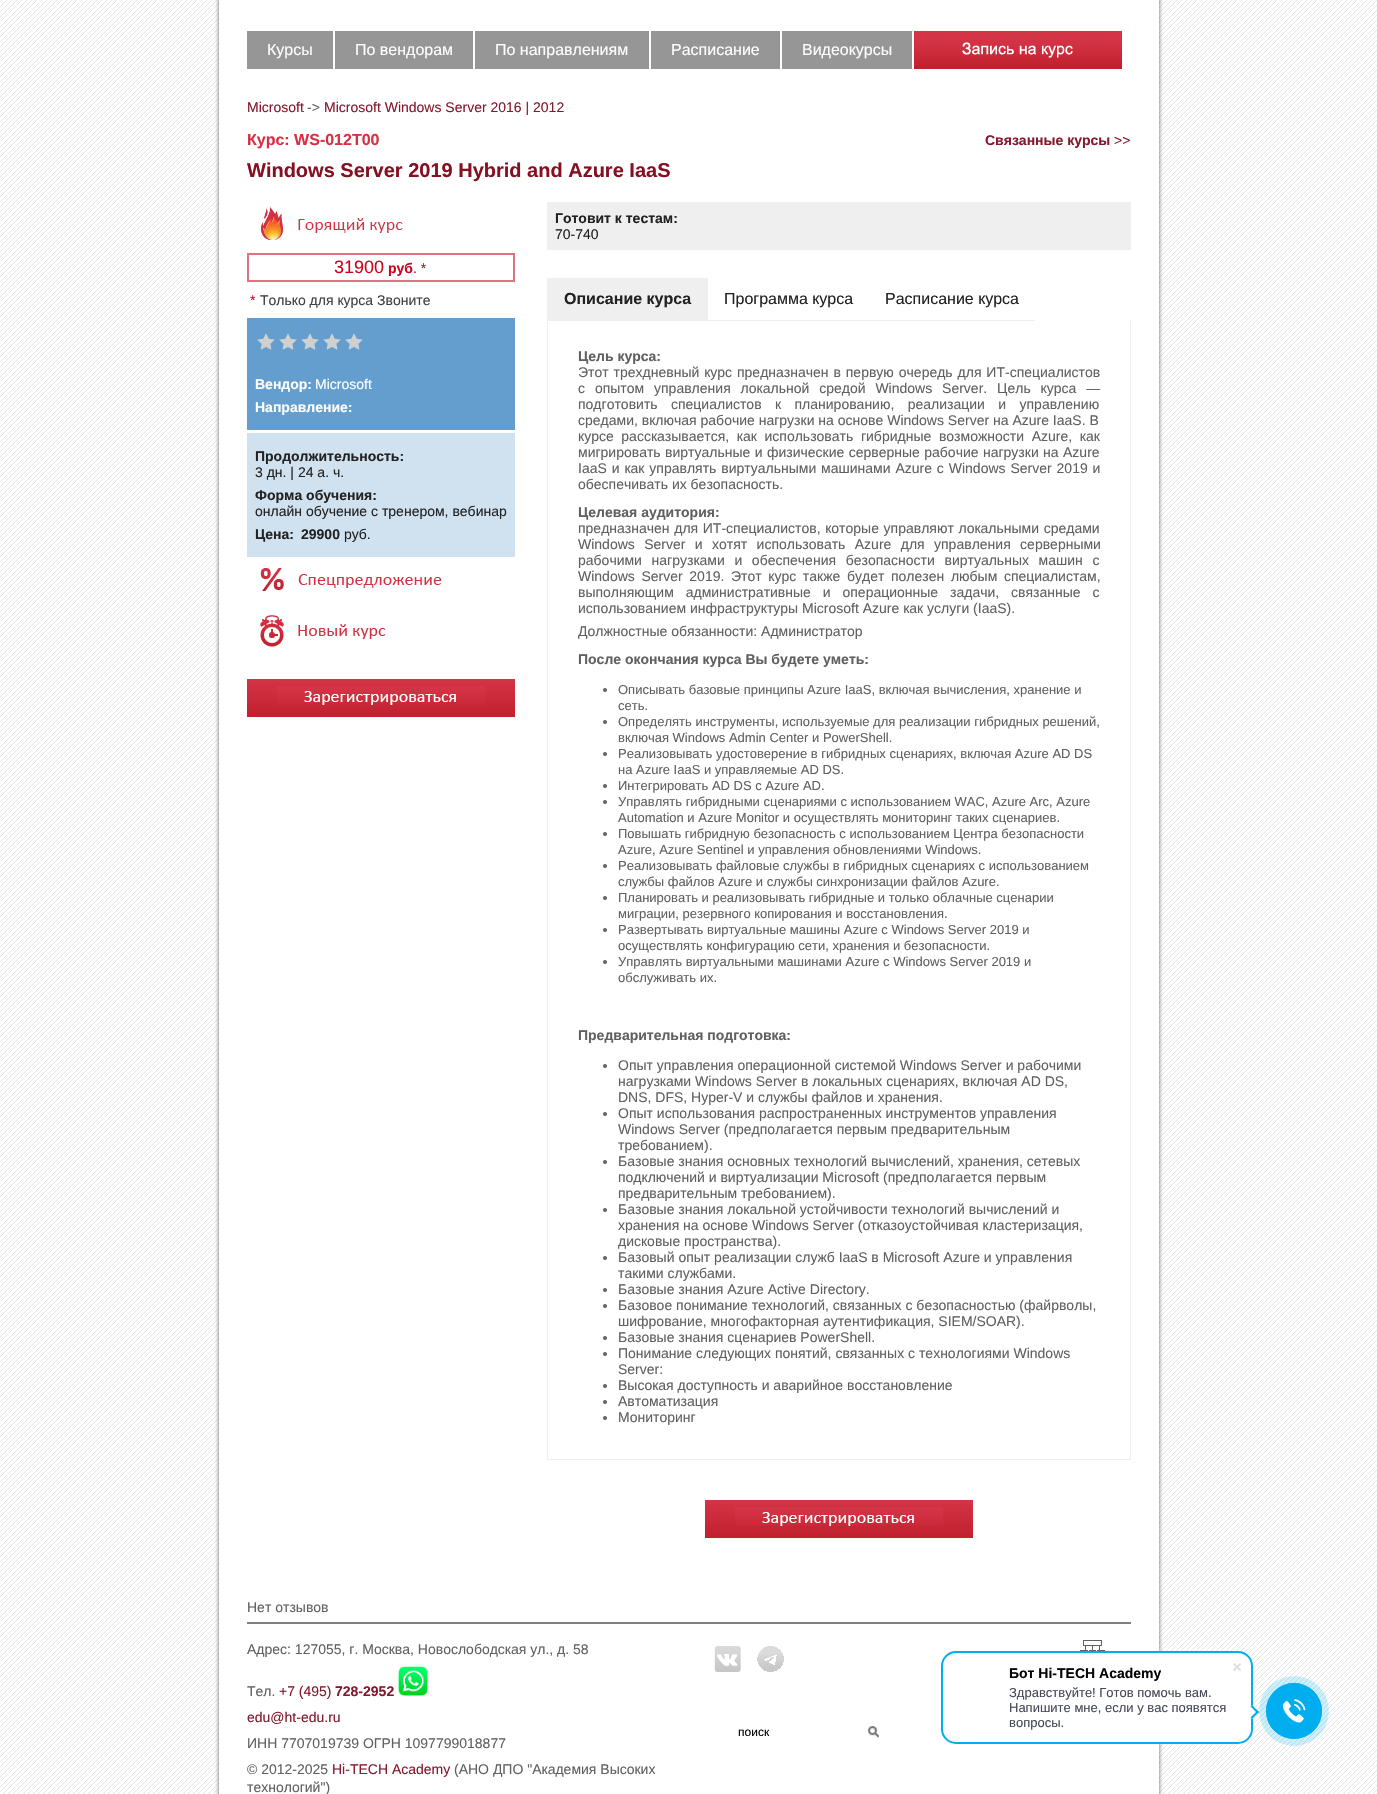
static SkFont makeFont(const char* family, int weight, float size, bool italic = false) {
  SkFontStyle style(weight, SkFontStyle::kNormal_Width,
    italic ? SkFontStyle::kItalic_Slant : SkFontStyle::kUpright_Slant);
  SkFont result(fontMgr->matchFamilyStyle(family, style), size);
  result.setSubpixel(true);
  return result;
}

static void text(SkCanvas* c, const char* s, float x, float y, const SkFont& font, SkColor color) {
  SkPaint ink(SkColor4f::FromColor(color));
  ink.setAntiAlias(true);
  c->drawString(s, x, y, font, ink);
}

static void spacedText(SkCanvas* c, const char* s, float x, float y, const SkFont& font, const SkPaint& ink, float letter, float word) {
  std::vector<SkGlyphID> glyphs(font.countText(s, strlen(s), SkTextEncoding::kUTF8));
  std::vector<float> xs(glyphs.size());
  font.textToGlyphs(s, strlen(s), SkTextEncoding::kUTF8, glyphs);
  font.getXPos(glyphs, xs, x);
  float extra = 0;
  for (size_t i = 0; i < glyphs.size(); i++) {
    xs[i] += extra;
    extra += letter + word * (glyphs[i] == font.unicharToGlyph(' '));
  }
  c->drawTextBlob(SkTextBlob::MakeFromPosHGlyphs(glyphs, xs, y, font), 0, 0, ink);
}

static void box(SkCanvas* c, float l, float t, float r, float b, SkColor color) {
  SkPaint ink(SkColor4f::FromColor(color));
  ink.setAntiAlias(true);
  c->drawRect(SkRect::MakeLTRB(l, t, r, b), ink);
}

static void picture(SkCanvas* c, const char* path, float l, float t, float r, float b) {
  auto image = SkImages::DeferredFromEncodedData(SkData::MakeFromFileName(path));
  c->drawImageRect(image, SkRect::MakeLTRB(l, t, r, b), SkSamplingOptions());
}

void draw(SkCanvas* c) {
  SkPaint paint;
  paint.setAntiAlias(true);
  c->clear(0xffffffff);
  picture(c, "img_01.png", 0, 0, 1377, 1794);
  paint.setColor(0x99000000);
  paint.setMaskFilter(SkMaskFilter::MakeBlur(kNormal_SkBlurStyle, 2));
  c->drawRoundRect(SkRect::MakeLTRB(219, -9, 1159, 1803), 3, 3, paint);
  paint.setMaskFilter(nullptr);
  box(c, 219, 0, 1159, 1794, 0xffffffff);
  box(c, 247, 31, 333, 69, 0xff969696);
  SkFont face1 = makeFont("Liberation Sans", 400, 16);
  text(c, "Курсы", 267, 55, face1, 0xfffefefe);
  box(c, 335, 31, 473, 69, 0xff969696);
  text(c, "По вендорам", 355, 55, face1, 0xfffefefe);
  box(c, 475, 31, 649, 69, 0xff969696);
  text(c, "По направлениям", 495, 55, face1, 0xfffefefe);
  box(c, 651, 31, 780, 69, 0xff969696);
  text(c, "Расписание", 671, 55, face1, 0xfffefefe);
  box(c, 782, 31, 912, 69, 0xff969696);
  text(c, "Видеокурсы", 802, 55, face1, 0xfffefefe);
  picture(c, "img_02.png", 914, 31, 1122, 69);
  SkFont face2 = makeFont("Liberation Sans", 400, 14);
  text(c, "Microsoft", 247, 112, face2, 0xff84192d);
  text(c, "->", 307, 112, face2, 0xff616060);
  text(c, "Microsoft Windows Server 2016 | 2012", 324, 112, face2, 0xff84192d);
  SkFont face3 = makeFont("Liberation Sans", 700, 16);
  text(c, "Курс: WS-012T00", 247, 145, face3, 0xffd82f44);
  SkFont face4 = makeFont("Liberation Sans", 700, 14);
  text(c, "Связанные курсы", 985, 145, face4, 0xff84192d);
  text(c, ">>", 1114, 145, face2, 0xff84192d);
  SkFont face5 = makeFont("Liberation Sans", 700, 20);
  text(c, "Windows Server 2019 Hybrid and Azure IaaS", 247, 177, face5, 0xff851022);
  picture(c, "img_03.png", 261, 207, 403, 240);
  paint.setStyle(SkPaint::kStroke_Style);
  paint.setStrokeWidth(2);
  paint.setColor(0xffdf7380);
  c->drawRect(SkRect::MakeLTRB(248, 254, 514, 281), paint);
  SkFont face6 = makeFont("Liberation Sans", 400, 18);
  text(c, "31900", 334, 273, face6, 0xffcc051c);
  text(c, "руб", 388, 273, face4, 0xffcc051c);
  text(c, ". *", 413, 273, face2, 0xffcc051c);
  text(c, "*", 250, 305, face2, 0xffcc051c);
  text(c, "Только для курса Звоните", 260, 305, face2, 0xff404040);
  box(c, 247, 318, 515, 430, 0xff649ece);
  picture(c, "img_04.png", 257, 333, 363, 350);
  text(c, "Вендор:", 255, 389, face4, 0xfffefefe);
  text(c, "Microsoft", 315, 389, face2, 0xfffefefe);
  text(c, "Направление:", 255, 412, face4, 0xfffefefe);
  box(c, 247, 433, 515, 557, 0xffd0e2f0);
  text(c, "Продолжительность:", 255, 461, face4, 0xff222222);
  text(c, "3 дн. | 24 а. ч.", 255, 477, face2, 0xff222222);
  text(c, "Форма обучения:", 255, 500, face4, 0xff222222);
  text(c, "онлайн обучение с тренером, вебинар", 255, 516, face2, 0xff222222);
  text(c, "Цена:", 255, 539, face4, 0xff222222);
  text(c, "29900", 301, 539, face4, 0xff222222);
  text(c, "руб.", 344, 539, face2, 0xff222222);
  picture(c, "img_05.png", 260, 568, 442, 591);
  picture(c, "img_06.png", 260, 615, 386, 647);
  paint.setStyle(SkPaint::kFill_Style);
  {
    const SkColor colors[] = {0xffc1202d, 0xffd33446};
    const float stops[] = {0, 1};
    const SkPoint ends[] = {{381, 717}, {381, 679}};
    paint.setShader(SkGradientShader::MakeLinear(ends, colors, stops, 2, SkTileMode::kClamp));
    paint.setAlpha(255);
  }
  c->drawRect(SkRect::MakeLTRB(247, 679, 515, 717), paint);
  picture(c, "img_07.png", 277, 686, 485, 705);
  box(c, 547, 202, 1131, 250, 0xffefefef);
  text(c, "Готовит к тестам:", 555, 223, face4, 0xff222222);
  text(c, "70-740", 555, 239, face2, 0xff222222);
  box(c, 547, 278, 708, 321, 0xffefefef);
  text(c, "Описание курса", 564, 304, face3, 0xff222222);
  box(c, 708, 320, 1035, 321, 0xffefefef);
  text(c, "Программа курса", 724, 304, face1, 0xff222222);
  text(c, "Расписание курса", 885, 304, face1, 0xff222222);
  box(c, 1130, 321, 1131, 1460, 0xffeeeeee);
  box(c, 547, 1459, 1131, 1460, 0xffeeeeee);
  box(c, 547, 321, 548, 1460, 0xffeeeeee);
  text(c, "Цель курса:", 578, 361, face4, 0xff616060);
  paint.setShader(nullptr);
  paint.setColor(0xff616060);
  spacedText(c, "Этот трехдневный курс предназначен в первую очередь для ИТ-специалистов", 578, 377, face2, paint, 0, 1);
  spacedText(c, "с опытом управления локальной средой Windows Server. Цель курса —", 578, 393, face2, paint, 0, 6);
  spacedText(c, "подготовить специалистов к планированию, реализации и управлению", 578, 409, face2, paint, 0, 9.5f);
  text(c, "средами, включая рабочие нагрузки на основе Windows Server на Azure IaaS. В", 578, 425, face2, 0xff616060);
  spacedText(c, "курсе рассказывается, как использовать гибридные возможности Azure, как", 578, 441, face2, paint, 0, 3.75f);
  spacedText(c, "мигрировать виртуальные и физические серверные рабочие нагрузки на Azure", 578, 457, face2, paint, 0, 0.5f);
  spacedText(c, "IaaS и как управлять виртуальными машинами Azure с Windows Server 2019 и", 578, 473, face2, paint, 0, 1);
  text(c, "обеспечивать их безопасность.", 578, 489, face2, 0xff616060);
  text(c, "Целевая аудитория:", 578, 517, face4, 0xff616060);
  spacedText(c, "предназначен для ИТ-специалистов, которые управляют локальными средами", 578, 533, face2, paint, 0, 0.75f);
  spacedText(c, "Windows Server и хотят использовать Azure для управления серверными", 578, 549, face2, paint, 0, 5.5f);
  spacedText(c, "рабочими нагрузками и обеспечения безопасности виртуальных машин с", 578, 565, face2, paint, 0, 5.75f);
  spacedText(c, "Windows Server 2019. Этот курс также будет полезен любым специалистам,", 578, 581, face2, paint, 0, 2.75f);
  spacedText(c, "выполняющим административные и операционные задачи, связанные с", 578, 597, face2, paint, 0, 8);
  text(c, "использованием инфраструктуры Microsoft Azure как услуги (IaaS).", 578, 613, face2, 0xff616060);
  text(c, "Должностные обязанности: Администратор", 578, 636, face2, 0xff616060);
  text(c, "После окончания курса Вы будете уметь:", 578, 664, face4, 0xff616060);
  c->drawCircle(605, 690, 2, paint);
  SkFont face7 = makeFont("Liberation Sans", 400, 13);
  text(c, "Описывать базовые принципы Azure IaaS, включая вычисления, хранение и", 618, 694, face7, 0xff616060);
  text(c, "сеть.", 618, 710, face7, 0xff616060);
  c->drawCircle(605, 722, 2, paint);
  text(c, "Определять инструменты, используемые для реализации гибридных решений,", 618, 726, face7, 0xff616060);
  text(c, "включая Windows Admin Center и PowerShell.", 618, 742, face7, 0xff616060);
  c->drawCircle(605, 754, 2, paint);
  text(c, "Реализовывать удостоверение в гибридных сценариях, включая Azure AD DS", 618, 758, face7, 0xff616060);
  text(c, "на Azure IaaS и управляемые AD DS.", 618, 774, face7, 0xff616060);
  c->drawCircle(605, 786, 2, paint);
  text(c, "Интегрировать AD DS с Azure AD.", 618, 790, face7, 0xff616060);
  c->drawCircle(605, 802, 2, paint);
  text(c, "Управлять гибридными сценариями с использованием WAC, Azure Arc, Azure", 618, 806, face7, 0xff616060);
  text(c, "Automation и Azure Monitor и осуществлять мониторинг таких сценариев.", 618, 822, face7, 0xff616060);
  c->drawCircle(605, 834, 2, paint);
  text(c, "Повышать гибридную безопасность с использованием Центра безопасности", 618, 838, face7, 0xff616060);
  text(c, "Azure, Azure Sentinel и управления обновлениями Windows.", 618, 854, face7, 0xff616060);
  c->drawCircle(605, 866, 2, paint);
  text(c, "Реализовывать файловые службы в гибридных сценариях с использованием", 618, 870, face7, 0xff616060);
  text(c, "службы файлов Azure и службы синхронизации файлов Azure.", 618, 886, face7, 0xff616060);
  c->drawCircle(605, 898, 2, paint);
  text(c, "Планировать и реализовывать гибридные и только облачные сценарии", 618, 902, face7, 0xff616060);
  text(c, "миграции, резервного копирования и восстановления.", 618, 918, face7, 0xff616060);
  c->drawCircle(605, 930, 2, paint);
  text(c, "Развертывать виртуальные машины Azure c Windows Server 2019 и", 618, 934, face7, 0xff616060);
  text(c, "осуществлять конфигурацию сети, хранения и безопасности.", 618, 950, face7, 0xff616060);
  c->drawCircle(605, 962, 2, paint);
  text(c, "Управлять виртуальными машинами Azure c Windows Server 2019 и", 618, 966, face7, 0xff616060);
  text(c, "обслуживать их.", 618, 982, face7, 0xff616060);
  text(c, "Предварительная подготовка:", 578, 1040, face4, 0xff616060);
  c->drawCircle(605, 1066, 2, paint);
  text(c, "Опыт управления операционной системой Windows Server и рабочими", 618, 1070, face2, 0xff616060);
  text(c, "нагрузками Windows Server в локальных сценариях, включая AD DS,", 618, 1086, face2, 0xff616060);
  text(c, "DNS, DFS, Hyper-V и службы файлов и хранения.", 618, 1102, face2, 0xff616060);
  c->drawCircle(605, 1114, 2, paint);
  text(c, "Опыт использования распространенных инструментов управления", 618, 1118, face2, 0xff616060);
  text(c, "Windows Server (предполагается первым предварительным", 618, 1134, face2, 0xff616060);
  text(c, "требованием).", 618, 1150, face2, 0xff616060);
  c->drawCircle(605, 1162, 2, paint);
  text(c, "Базовые знания основных технологий вычислений, хранения, сетевых", 618, 1166, face2, 0xff616060);
  text(c, "подключений и виртуализации Microsoft (предполагается первым", 618, 1182, face2, 0xff616060);
  text(c, "предварительным требованием).", 618, 1198, face2, 0xff616060);
  c->drawCircle(605, 1210, 2, paint);
  text(c, "Базовые знания локальной устойчивости технологий вычислений и", 618, 1214, face2, 0xff616060);
  text(c, "хранения на основе Windows Server (отказоустойчивая кластеризация,", 618, 1230, face2, 0xff616060);
  text(c, "дисковые пространства).", 618, 1246, face2, 0xff616060);
  c->drawCircle(605, 1258, 2, paint);
  text(c, "Базовый опыт реализации служб IaaS в Microsoft Azure и управления", 618, 1262, face2, 0xff616060);
  text(c, "такими службами.", 618, 1278, face2, 0xff616060);
  c->drawCircle(605, 1290, 2, paint);
  text(c, "Базовые знания Azure Active Directory.", 618, 1294, face2, 0xff616060);
  c->drawCircle(605, 1306, 2, paint);
  text(c, "Базовое понимание технологий, связанных с безопасностью (файрволы,", 618, 1310, face2, 0xff616060);
  text(c, "шифрование, многофакторная аутентификация, SIEM/SOAR).", 618, 1326, face2, 0xff616060);
  c->drawCircle(605, 1338, 2, paint);
  text(c, "Базовые знания сценариев PowerShell.", 618, 1342, face2, 0xff616060);
  c->drawCircle(605, 1354, 2, paint);
  text(c, "Понимание следующих понятий, связанных с технологиями Windows", 618, 1358, face2, 0xff616060);
  text(c, "Server:", 618, 1374, face2, 0xff616060);
  c->drawCircle(605, 1386, 2, paint);
  text(c, "Высокая доступность и аварийное восстановление", 618, 1390, face2, 0xff616060);
  c->drawCircle(605, 1402, 2, paint);
  text(c, "Автоматизация", 618, 1406, face2, 0xff616060);
  c->drawCircle(605, 1418, 2, paint);
  text(c, "Мониторинг", 618, 1422, face2, 0xff616060);
  {
    const SkColor colors[] = {0xffc1202d, 0xffd33446};
    const float stops[] = {0, 1};
    const SkPoint ends[] = {{839, 1538}, {839, 1500}};
    paint.setShader(SkGradientShader::MakeLinear(ends, colors, stops, 2, SkTileMode::kClamp));
    paint.setAlpha(255);
  }
  c->drawRect(SkRect::MakeLTRB(705, 1500, 973, 1538), paint);
  picture(c, "img_07.png", 735, 1507, 943, 1526);
  text(c, "Нет отзывов", 247, 1612, face2, 0xff616060);
  box(c, 247, 1622, 1131, 1624, 0xff808080);
  text(c, "Адрес: 127055, г. Москва, Новослободская ул., д. 58", 247, 1654, face2, 0xff616060);
  text(c, "Тел.", 247, 1696, face2, 0xff616060);
  text(c, "+7 (495)", 279, 1696, face2, 0xff84192d);
  text(c, "728-2952", 335, 1696, face4, 0xff84192d);
  picture(c, "img_08.png", 398, 1666, 428, 1696);
  text(c, "edu@ht-edu.ru", 247, 1722, face2, 0xff84192d);
  text(c, "ИНН 7707019739 ОГРН 1097799018877", 247, 1748, face2, 0xff616060);
  text(c, "© 2012-2025", 247, 1774, face2, 0xff616060);
  text(c, "Hi-TECH Academy", 332, 1774, face2, 0xff84192d);
  text(c, "(АНО ДПО \"Академия Высоких", 454, 1774, face2, 0xff616060);
  text(c, "технологий\")", 247, 1792, face2, 0xff616060);
  picture(c, "img_09.png", 714, 1646, 741, 1672);
  picture(c, "img_10.png", 757, 1646, 784, 1672);
  picture(c, "img_11.png", 1080, 1640, 1105, 1651);
  SkFont face8 = makeFont("Liberation Sans", 400, 12);
  text(c, "поиск", 738, 1736, face8, 0xff040404);
  picture(c, "img_12.png", 868, 1726, 879, 1738);
  paint.setShader(nullptr);
  paint.setColor(0xffffffff);
  c->drawRoundRect(SkRect::MakeLTRB(942, 1652, 1252, 1743), 14, 14, paint);
  paint.setStyle(SkPaint::kStroke_Style);
  paint.setColor(0xff00aeef);
  c->drawRoundRect(SkRect::MakeLTRB(942, 1652, 1252, 1743), 14, 14, paint);
  text(c, "Бот Hi-TECH Academy", 1009, 1678, face4, 0xff040404);
  text(c, "Здравствуйте! Готов помочь вам.", 1009, 1697, face7, 0xff424956);
  text(c, "Напишите мне, если у вас появятся", 1009, 1712, face7, 0xff424956);
  text(c, "вопросы.", 1009, 1727, face7, 0xff424956);
  picture(c, "img_13.png", 1233, 1663, 1241, 1671);
  paint.setStyle(SkPaint::kFill_Style);
  paint.setColor(0xffffffff);
  c->drawPath(SkPathBuilder().moveTo(1245, 1712).lineTo(1252, 1705).lineTo(1259, 1712).lineTo(1252, 1719).close().detach(), paint);
  paint.setColor(0xff00aeef);
  c->drawPath(SkPathBuilder().moveTo(1250.5f, 1706.5f).lineTo(1252, 1705).lineTo(1259, 1712).lineTo(1257.5f, 1713.5f).close().detach(), paint);
  c->drawPath(SkPathBuilder().moveTo(1250.5f, 1717.5f).lineTo(1257.5f, 1710.5f).lineTo(1259, 1712).lineTo(1252, 1719).close().detach(), paint);
  paint.setColor(0x3300aeef);
  c->drawCircle(1294, 1711, 35, paint);
  paint.setStyle(SkPaint::kStroke_Style);
  paint.setStrokeWidth(0.8f);
  paint.setColor(0xff00aeef);
  c->drawCircle(1294, 1711, 27.6f, paint);
  paint.setStyle(SkPaint::kFill_Style);
  c->drawCircle(1294, 1711, 28, paint);
  picture(c, "img_14.png", 1282, 1699, 1306, 1723);
}
